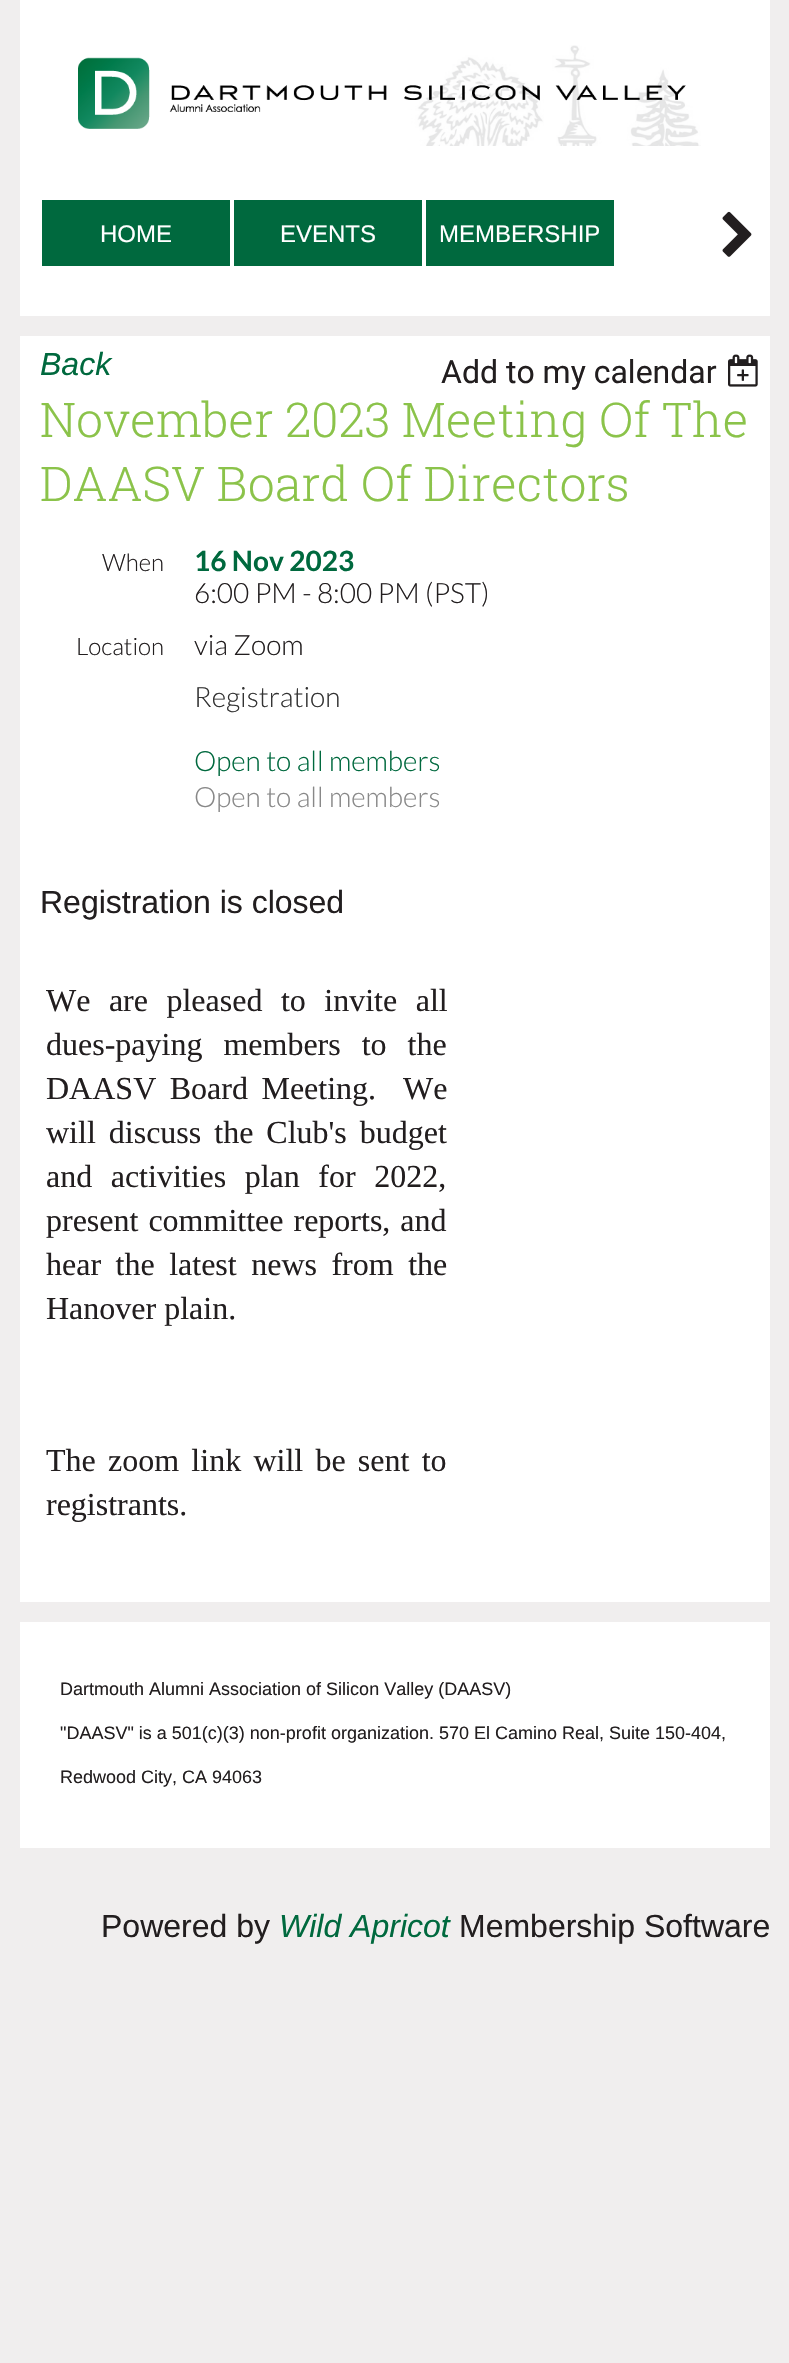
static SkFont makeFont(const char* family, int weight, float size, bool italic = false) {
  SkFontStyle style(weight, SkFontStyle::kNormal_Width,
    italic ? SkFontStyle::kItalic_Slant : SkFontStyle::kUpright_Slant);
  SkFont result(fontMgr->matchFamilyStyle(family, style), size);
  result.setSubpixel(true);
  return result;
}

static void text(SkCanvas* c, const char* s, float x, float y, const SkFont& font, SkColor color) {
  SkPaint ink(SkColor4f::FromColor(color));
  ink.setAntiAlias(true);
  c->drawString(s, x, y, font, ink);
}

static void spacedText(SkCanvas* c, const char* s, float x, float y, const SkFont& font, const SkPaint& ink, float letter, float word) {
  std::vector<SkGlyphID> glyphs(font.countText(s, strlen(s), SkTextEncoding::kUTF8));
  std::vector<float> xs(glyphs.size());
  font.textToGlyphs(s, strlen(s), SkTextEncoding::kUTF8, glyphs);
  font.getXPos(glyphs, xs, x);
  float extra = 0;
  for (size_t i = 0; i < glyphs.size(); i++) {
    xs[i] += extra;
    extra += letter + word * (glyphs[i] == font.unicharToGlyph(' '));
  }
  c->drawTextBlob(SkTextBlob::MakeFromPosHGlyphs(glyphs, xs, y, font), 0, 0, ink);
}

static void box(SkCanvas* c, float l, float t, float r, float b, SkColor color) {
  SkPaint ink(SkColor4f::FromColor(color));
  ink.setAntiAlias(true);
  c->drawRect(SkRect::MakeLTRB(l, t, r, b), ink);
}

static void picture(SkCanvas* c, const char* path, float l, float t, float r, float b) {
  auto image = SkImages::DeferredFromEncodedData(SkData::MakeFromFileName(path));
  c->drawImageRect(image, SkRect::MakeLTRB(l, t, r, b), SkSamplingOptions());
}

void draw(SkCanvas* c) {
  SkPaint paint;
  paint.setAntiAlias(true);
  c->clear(0xfff0eeee);
  box(c, 20, 0, 770, 316, 0xffffffff);
  picture(c, "img_01.png", 78, 45, 701, 146);
  box(c, 42, 200, 230, 266, 0xff00693e);
  SkFont face1 = makeFont("Liberation Sans", 400, 24);
  text(c, "HOME", 100, 242, face1, 0xffffffff);
  box(c, 234, 200, 422, 266, 0xff00693e);
  text(c, "EVENTS", 280, 242, face1, 0xffffffff);
  box(c, 426, 200, 614, 266, 0xff00693e);
  text(c, "MEMBERSHIP", 439, 242, face1, 0xffffffff);
  picture(c, "img_02.png", 722, 211, 752, 257);
  box(c, 20, 336, 770, 1602, 0xffffffff);
  SkFont face2 = makeFont("Liberation Sans", 400, 32, true);
  text(c, "Back", 40, 375, face2, 0xff00693e);
  SkFont face3 = makeFont("Roboto", 400, 32);
  text(c, "Add to my calendar", 441, 383, face3, 0xff221e1f);
  picture(c, "img_03.png", 728, 354, 758, 387);
  SkFont face4 = makeFont("Roboto Slab", 300, 48);
  text(c, "November 2023 Meeting Of The", 40, 437, face4, 0xff8bc34a);
  text(c, "DAASV Board Of Directors", 40, 501, face4, 0xff8bc34a);
  SkFont face5 = makeFont("Lato", 300, 24);
  text(c, "When", 102, 571, face5, 0xff221e1f);
  SkFont face6 = makeFont("Lato", 700, 28);
  text(c, "16 Nov 2023", 194, 571, face6, 0xff00693e);
  SkFont face7 = makeFont("Lato", 300, 28);
  text(c, "6:00 PM - 8:00 PM (PST)", 194, 603, face7, 0xff221e1f);
  text(c, "Location", 76, 655, face5, 0xff221e1f);
  text(c, "via Zoom", 194, 655, face7, 0xff221e1f);
  text(c, "Registration", 194, 707, face7, 0xff333333);
  text(c, "Open to all members", 194, 771, face7, 0xff00693e);
  text(c, "Open to all members", 194, 807, face7, 0xff888888);
  SkFont face8 = makeFont("Liberation Sans", 400, 32);
  text(c, "Registration is closed", 40, 913, face8, 0xff221e1f);
  SkFont face9 = makeFont("Liberation Serif", 400, 32);
  paint.setColor(0xff221e1f);
  spacedText(c, "We are pleased to invite all", 46, 1011, face9, paint, 0, 10.5f);
  spacedText(c, "dues-paying members to the", 46, 1055, face9, paint, 0, 13);
  spacedText(c, "DAASV Board Meeting.  We", 46, 1099, face9, paint, 0, 5.5f);
  spacedText(c, "will discuss the Club's budget", 46, 1143, face9, paint, 0, 5);
  spacedText(c, "and activities plan for 2022,", 46, 1187, face9, paint, 0, 10.5f);
  spacedText(c, "present committee reports, and", 46, 1231, face9, paint, 0, 2);
  spacedText(c, "hear the latest news from the", 46, 1275, face9, paint, 0, 6.5f);
  text(c, "Hanover plain.", 46, 1319, face9, 0xff221e1f);
  spacedText(c, "The zoom link will be sent to", 46, 1471, face9, paint, 0, 4.25f);
  text(c, "registrants.", 46, 1515, face9, 0xff221e1f);
  box(c, 20, 1622, 770, 1848, 0xffffffff);
  SkFont face10 = makeFont("Liberation Sans", 400, 18);
  text(c, "Dartmouth Alumni Association of Silicon Valley (DAASV)", 60, 1695, face10, 0xff221e1f);
  text(c, "\"DAASV\" is a 501(c)(3) non-profit organization. 570 El Camino Real, Suite 150-404,", 60, 1739, face10, 0xff221e1f);
  text(c, "Redwood City, CA 94063", 60, 1783, face10, 0xff221e1f);
  text(c, "Powered by", 101, 1937, face8, 0xff221e1f);
  text(c, "Wild Apricot", 279, 1937, face2, 0xff00693e);
  text(c, "Membership Software", 459, 1937, face8, 0xff221e1f);
}
